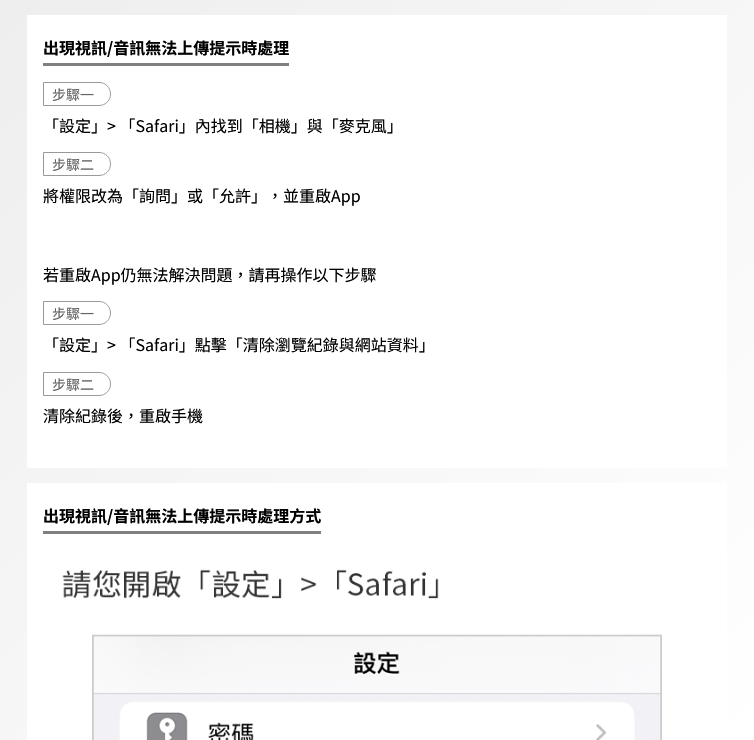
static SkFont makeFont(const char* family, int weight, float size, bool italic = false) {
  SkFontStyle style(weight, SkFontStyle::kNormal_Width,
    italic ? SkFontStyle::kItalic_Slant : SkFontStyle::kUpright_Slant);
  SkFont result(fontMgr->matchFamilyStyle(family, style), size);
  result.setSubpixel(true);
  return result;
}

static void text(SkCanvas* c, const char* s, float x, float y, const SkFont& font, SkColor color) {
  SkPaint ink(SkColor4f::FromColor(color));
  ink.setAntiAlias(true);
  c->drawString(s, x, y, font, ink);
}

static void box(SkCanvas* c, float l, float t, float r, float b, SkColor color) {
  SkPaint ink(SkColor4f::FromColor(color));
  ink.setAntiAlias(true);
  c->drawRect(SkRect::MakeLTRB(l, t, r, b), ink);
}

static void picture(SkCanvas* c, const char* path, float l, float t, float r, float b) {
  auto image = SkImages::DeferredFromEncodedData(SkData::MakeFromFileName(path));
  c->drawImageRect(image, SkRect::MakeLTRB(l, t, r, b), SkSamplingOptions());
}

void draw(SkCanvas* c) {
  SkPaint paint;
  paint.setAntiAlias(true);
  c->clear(0xffffffff);
  {
    const SkColor colors[] = {0xffeeeeee, 0xffffffff};
    const float stops[] = {0, 1};
    const SkPoint ends[] = {{3.5f, -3.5f}, {751, 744}};
    paint.setShader(SkGradientShader::MakeLinear(ends, colors, stops, 2, SkTileMode::kClamp));
    paint.setAlpha(255);
  }
  c->drawRect(SkRect::MakeLTRB(0, 0, 754, 740), paint);
  box(c, 27, 15, 727, 468, 0xffffffff);
  box(c, 43, 63, 289, 66, 0xff808080);
  SkFont face1 = makeFont("Noto Sans TC", 700, 16);
  text(c, "出現視訊/音訊無法上傳提示時處理", 43, 54, face1, 0xff000000);
  paint.setStyle(SkPaint::kStroke_Style);
  paint.setStrokeWidth(1);
  paint.setShader(nullptr);
  paint.setColor(0xff999999);
  c->drawPath(SkPathBuilder().moveTo(43.5f, 82.5f).lineTo(99, 82.5f).cubicTo(105.5f, 82.5f, 110.5f, 87.5f, 110.5f, 94).cubicTo(110.5f, 100.5f, 105.5f, 105.5f, 99, 105.5f).lineTo(43.5f, 105.5f).close().detach(), paint);
  SkFont face2 = makeFont("Noto Sans TC", 400, 14);
  text(c, "步驟一", 52, 100, face2, 0xff666666);
  SkFont face3 = makeFont("Noto Sans TC", 400, 16);
  text(c, "「設定」> 「Safari」內找到「相機」與「麥克風」", 43, 132, face3, 0xff000000);
  c->drawPath(SkPathBuilder().moveTo(43.5f, 152.5f).lineTo(99, 152.5f).cubicTo(105.5f, 152.5f, 110.5f, 157.5f, 110.5f, 164).cubicTo(110.5f, 170.5f, 105.5f, 175.5f, 99, 175.5f).lineTo(43.5f, 175.5f).close().detach(), paint);
  text(c, "步驟二", 52, 170, face2, 0xff666666);
  text(c, "將權限改為「詢問」或「允許」，並重啟App", 43, 202, face3, 0xff000000);
  text(c, "若重啟App仍無法解決問題，請再操作以下步驟", 43, 281, face3, 0xff000000);
  c->drawPath(SkPathBuilder().moveTo(43.5f, 301.5f).lineTo(99, 301.5f).cubicTo(105.5f, 301.5f, 110.5f, 306.5f, 110.5f, 313).cubicTo(110.5f, 319.5f, 105.5f, 324.5f, 99, 324.5f).lineTo(43.5f, 324.5f).close().detach(), paint);
  text(c, "步驟一", 52, 319, face2, 0xff666666);
  text(c, "「設定」> 「Safari」點擊「清除瀏覽紀錄與網站資料」", 43, 351, face3, 0xff000000);
  c->drawPath(SkPathBuilder().moveTo(43.5f, 372.5f).lineTo(99, 372.5f).cubicTo(105.5f, 372.5f, 110.5f, 377.5f, 110.5f, 384).cubicTo(110.5f, 390.5f, 105.5f, 395.5f, 99, 395.5f).lineTo(43.5f, 395.5f).close().detach(), paint);
  text(c, "步驟二", 52, 390, face2, 0xff666666);
  text(c, "清除紀錄後，重啟手機", 43, 422, face3, 0xff000000);
  box(c, 27, 483, 727, 740, 0xffffffff);
  box(c, 43, 531, 321, 534, 0xff808080);
  text(c, "出現視訊/音訊無法上傳提示時處理方式", 43, 522, face1, 0xff000000);
  picture(c, "img_01.png", 62, 569, 662, 740);
}
